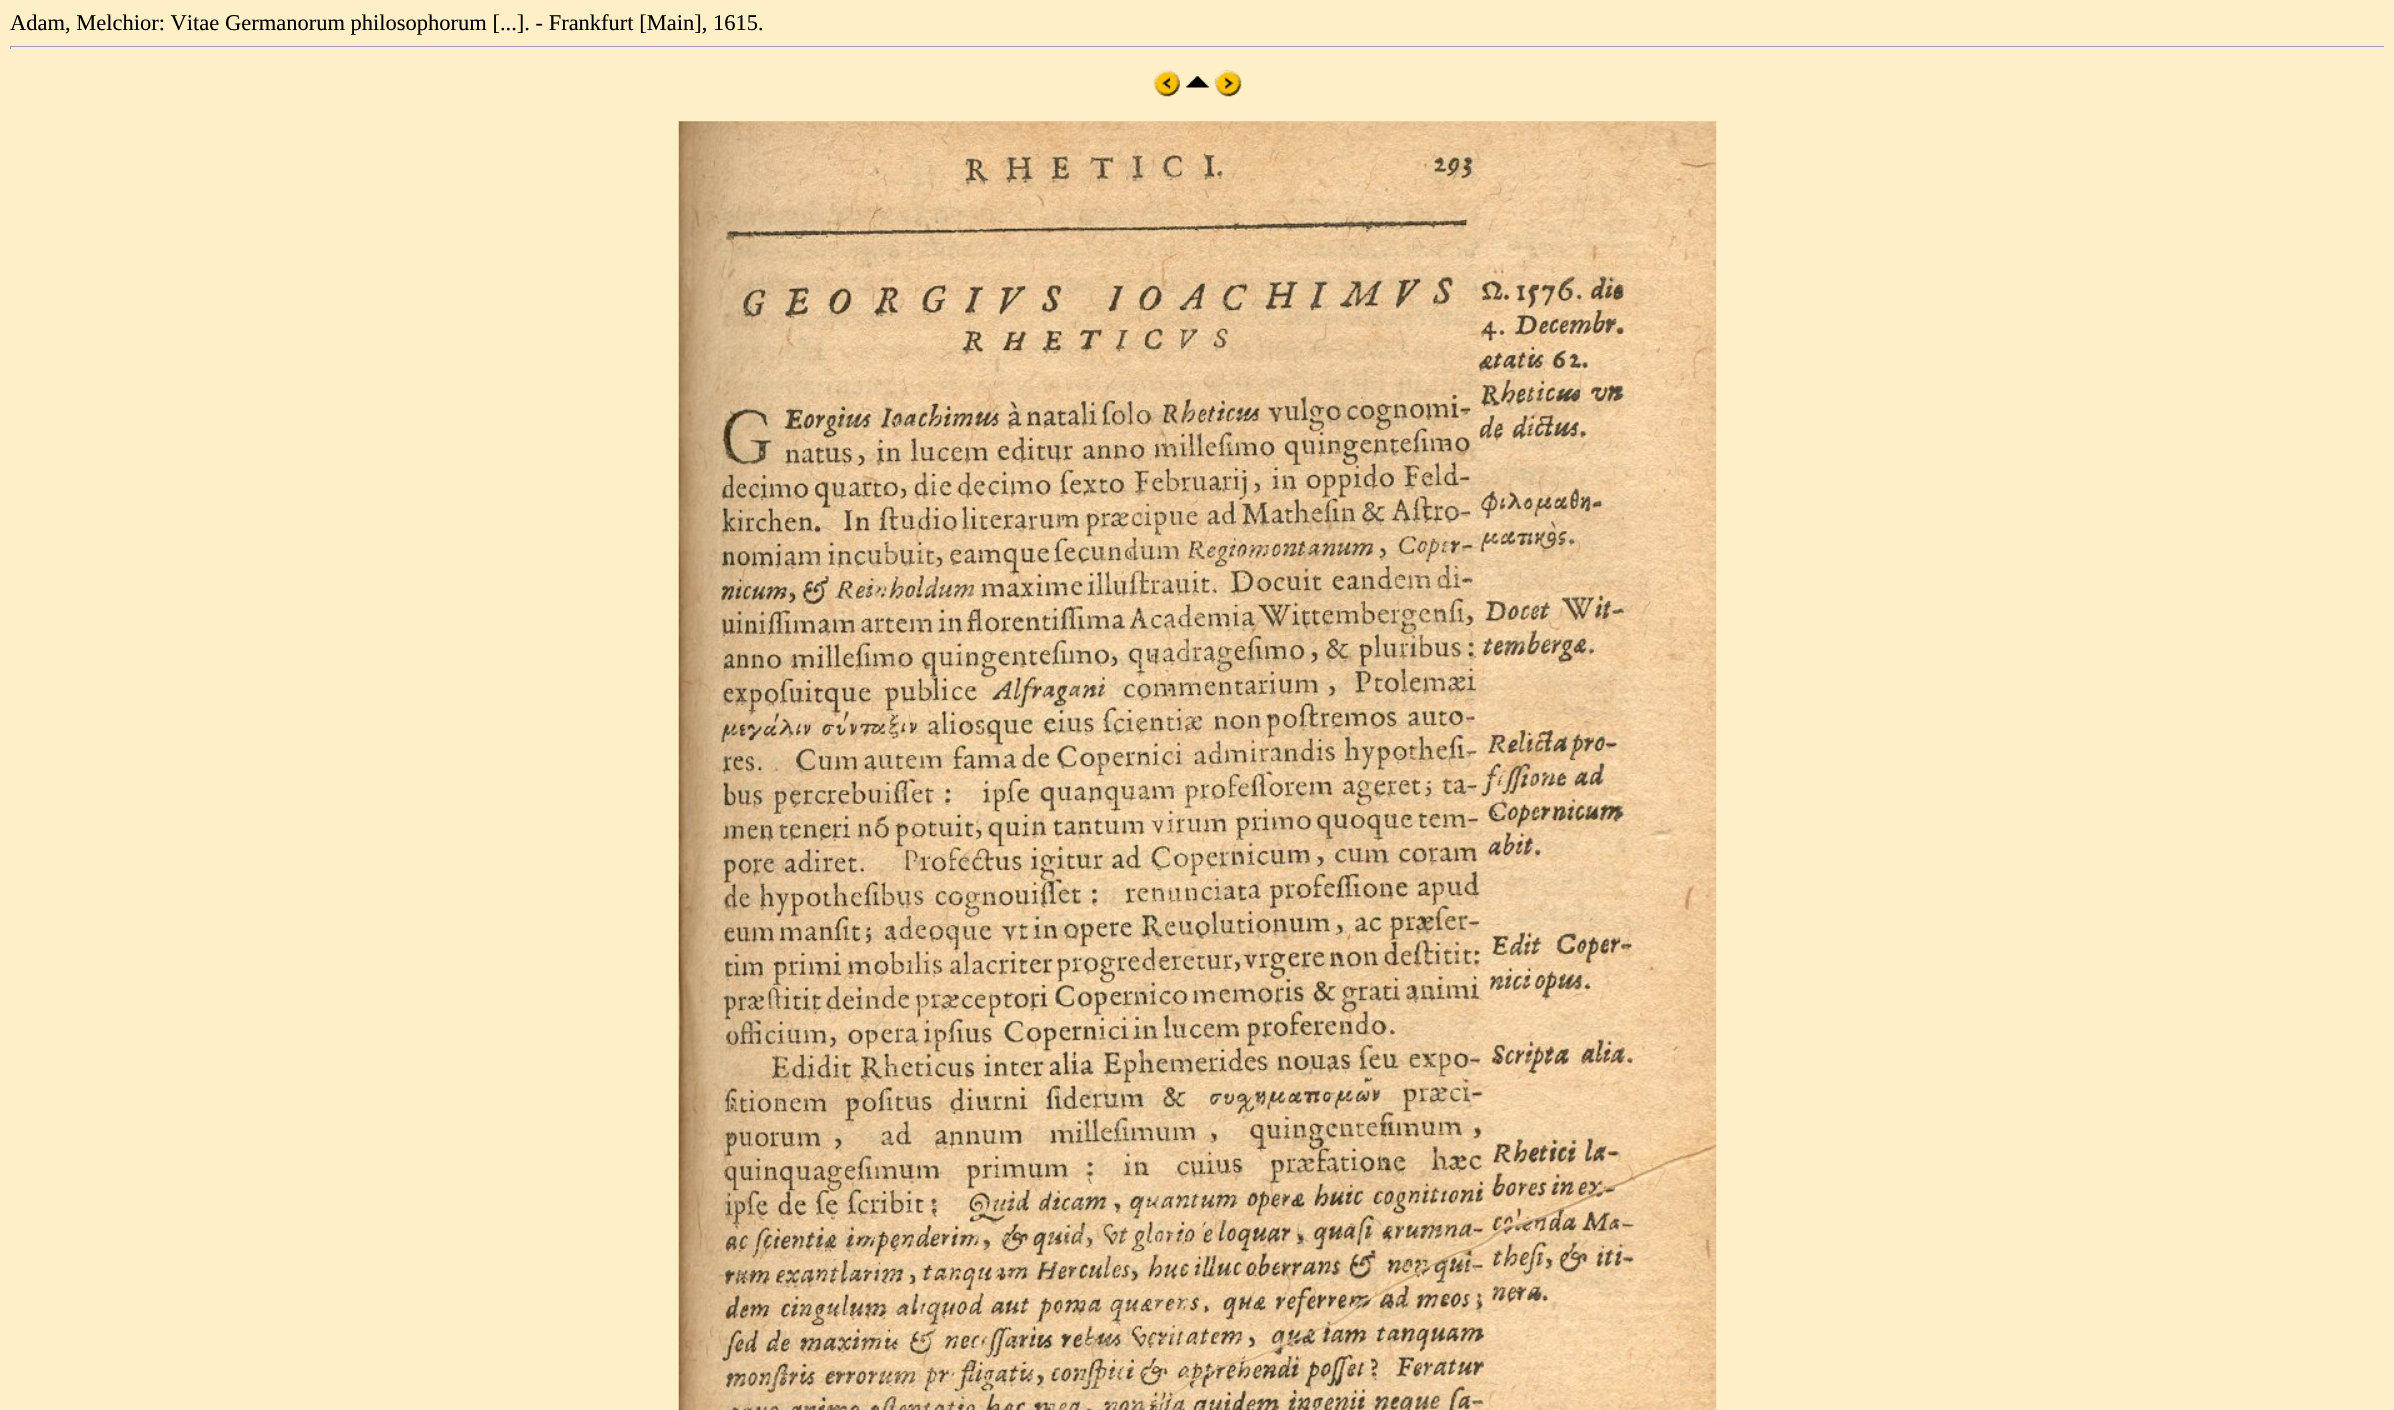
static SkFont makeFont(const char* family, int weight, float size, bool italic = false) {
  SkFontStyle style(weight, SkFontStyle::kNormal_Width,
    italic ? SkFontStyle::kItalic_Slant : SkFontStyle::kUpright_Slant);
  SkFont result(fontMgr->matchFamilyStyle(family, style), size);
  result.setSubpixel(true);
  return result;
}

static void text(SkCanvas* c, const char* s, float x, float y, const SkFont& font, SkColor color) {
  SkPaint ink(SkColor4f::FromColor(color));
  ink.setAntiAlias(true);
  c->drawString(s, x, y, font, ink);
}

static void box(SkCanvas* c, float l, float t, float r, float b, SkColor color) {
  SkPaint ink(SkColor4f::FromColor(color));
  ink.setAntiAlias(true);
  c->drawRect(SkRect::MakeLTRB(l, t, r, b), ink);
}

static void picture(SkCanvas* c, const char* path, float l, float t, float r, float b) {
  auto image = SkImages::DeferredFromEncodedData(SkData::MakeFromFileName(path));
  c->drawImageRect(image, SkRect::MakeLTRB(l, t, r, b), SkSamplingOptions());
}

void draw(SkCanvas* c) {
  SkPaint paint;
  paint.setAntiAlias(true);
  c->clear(0xffffefc6);
  SkFont face1 = makeFont("Liberation Serif", 400, 22.5f);
  text(c, "Adam, Melchior: Vitae Germanorum philosophorum [...]. - Frankfurt [Main], 1615.", 10, 30, face1, 0xff000000);
  box(c, 10, 46, 2385, 47, 0xff9f9f9f);
  box(c, 2384, 46, 2385, 49, 0xffeeeeee);
  box(c, 10, 48, 2385, 49, 0xffeeeeee);
  box(c, 10, 46, 11, 49, 0xff9f9f9f);
  picture(c, "img_01.png", 1153, 70, 1180, 97);
  picture(c, "img_02.png", 1186, 76, 1209, 88);
  picture(c, "img_03.png", 1215, 70, 1242, 97);
  picture(c, "img_04.png", 678, 121, 1717, 1410);
}
